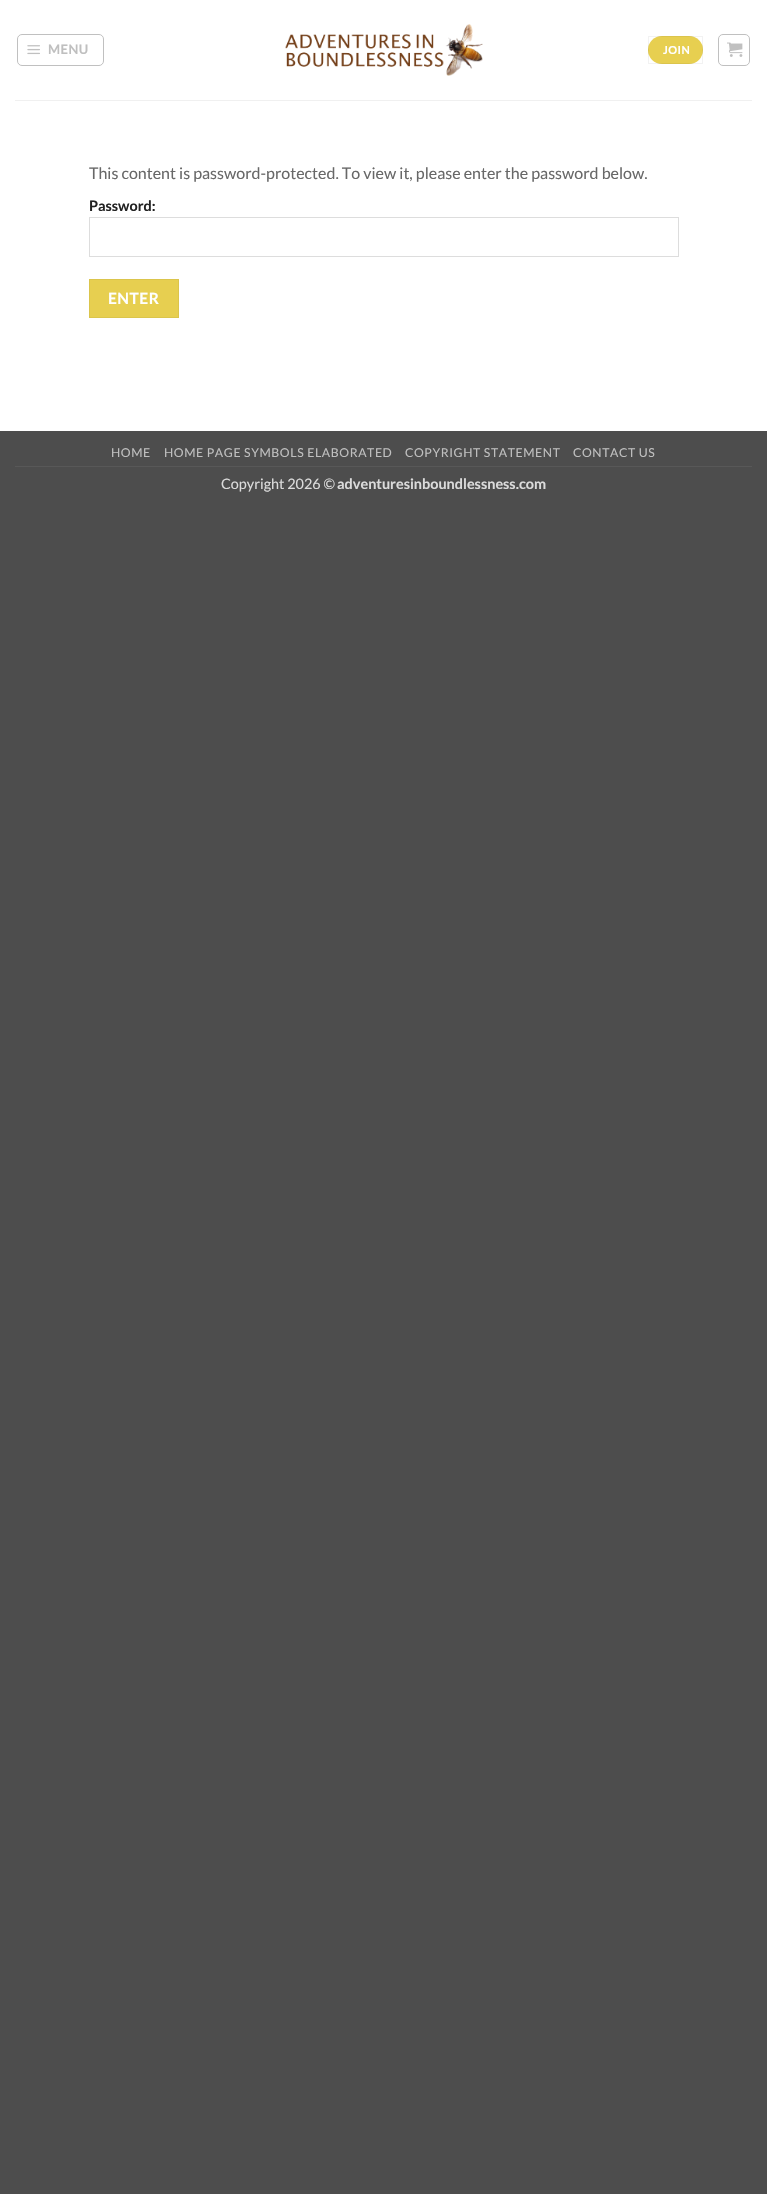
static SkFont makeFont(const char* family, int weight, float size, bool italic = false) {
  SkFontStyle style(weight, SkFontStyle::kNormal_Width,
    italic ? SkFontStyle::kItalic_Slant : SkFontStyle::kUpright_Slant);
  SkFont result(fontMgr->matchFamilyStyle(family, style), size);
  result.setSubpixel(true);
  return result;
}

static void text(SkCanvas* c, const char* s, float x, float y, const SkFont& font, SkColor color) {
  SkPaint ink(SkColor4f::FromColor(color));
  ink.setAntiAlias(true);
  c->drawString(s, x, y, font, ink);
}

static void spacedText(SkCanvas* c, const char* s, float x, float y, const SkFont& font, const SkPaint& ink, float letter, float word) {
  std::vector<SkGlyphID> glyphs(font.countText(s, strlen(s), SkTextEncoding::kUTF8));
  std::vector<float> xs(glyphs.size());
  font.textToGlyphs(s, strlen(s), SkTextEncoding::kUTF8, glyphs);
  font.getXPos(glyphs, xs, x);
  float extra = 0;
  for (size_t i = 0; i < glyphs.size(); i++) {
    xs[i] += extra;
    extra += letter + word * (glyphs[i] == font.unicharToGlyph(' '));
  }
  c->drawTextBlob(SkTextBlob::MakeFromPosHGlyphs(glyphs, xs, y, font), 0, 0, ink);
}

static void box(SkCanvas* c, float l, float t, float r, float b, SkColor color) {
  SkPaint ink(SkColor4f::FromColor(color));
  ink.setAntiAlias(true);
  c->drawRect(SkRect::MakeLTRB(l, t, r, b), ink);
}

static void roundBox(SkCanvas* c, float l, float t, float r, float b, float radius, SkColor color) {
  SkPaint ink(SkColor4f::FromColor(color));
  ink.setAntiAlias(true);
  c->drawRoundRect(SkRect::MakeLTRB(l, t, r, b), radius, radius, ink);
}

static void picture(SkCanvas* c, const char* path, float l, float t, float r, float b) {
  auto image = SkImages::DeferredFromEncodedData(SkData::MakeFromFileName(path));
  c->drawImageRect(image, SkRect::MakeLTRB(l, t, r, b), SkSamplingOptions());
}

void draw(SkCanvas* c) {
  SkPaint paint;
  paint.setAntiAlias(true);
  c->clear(0xff4d4d4d);
  box(c, 0, 0, 767, 431, 0xffffffff);
  paint.setStyle(SkPaint::kStroke_Style);
  paint.setStrokeWidth(1);
  paint.setColor(0xffc0c0c0);
  c->drawRoundRect(SkRect::MakeLTRB(17.5f, 34.5f, 103.5f, 65.5f), 4.5f, 4.5f, paint);
  picture(c, "img_01.png", 27, 45, 40, 55);
  SkFont face1 = makeFont("Lato", 700, 13);
  paint.setStyle(SkPaint::kFill_Style);
  paint.setColor(0xffbfbfbf);
  spacedText(c, "MENU", 48, 54, face1, paint, 0.5f, 0);
  picture(c, "img_02.png", 285, 24, 483, 76);
  roundBox(c, 648, 36, 703, 64, 14, 0xffe7cf50);
  paint.setStyle(SkPaint::kStroke_Style);
  paint.setColor(0x0d000000);
  c->drawRect(SkRect::MakeLTRB(648.5f, 36.5f, 702.5f, 63.5f), paint);
  SkFont face2 = makeFont("Lato", 700, 11);
  paint.setStyle(SkPaint::kFill_Style);
  paint.setColor(0xffffffff);
  spacedText(c, "JOIN", 663, 54, face2, paint, 0.5f, 0);
  paint.setStyle(SkPaint::kStroke_Style);
  paint.setColor(0xffc0c0c0);
  c->drawRoundRect(SkRect::MakeLTRB(718.5f, 34.5f, 749.5f, 65.5f), 4.5f, 4.5f, paint);
  picture(c, "img_03.png", 727, 42, 743, 57);
  box(c, 15, 100, 752, 101, 0xfff0f0f0);
  SkFont face3 = makeFont("Lato", 400, 16);
  text(c, "This content is password-protected. To view it, please enter the password below.", 89, 179, face3, 0xff686868);
  SkFont face4 = makeFont("Lato", 700, 14.4f);
  text(c, "Password:", 89, 211, face4, 0xff222222);
  paint.setColor(0xffdddddd);
  c->drawRect(SkRect::MakeLTRB(89.5f, 217.5f, 678.5f, 256.5f), paint);
  paint.setStyle(SkPaint::kFill_Style);
  paint.setColor(0xffe7cf50);
  c->drawRect(SkRect::MakeLTRB(89.5f, 279.5f, 178.5f, 317.5f), paint);
  paint.setStyle(SkPaint::kStroke_Style);
  paint.setColor(0xffdbc54c);
  c->drawRect(SkRect::MakeLTRB(89.5f, 279.5f, 178.5f, 317.5f), paint);
  SkFont face5 = makeFont("Lato", 700, 15.5f);
  paint.setStyle(SkPaint::kFill_Style);
  paint.setColor(0xffffffff);
  spacedText(c, "ENTER", 108, 304, face5, paint, 0.5f, 0);
  box(c, 15, 466, 752, 467, 0xff585858);
  SkFont face6 = makeFont("Lato", 400, 12.25f);
  paint.setColor(0xffbfbfbf);
  spacedText(c, "HOME", 111, 457, face6, paint, 0.6f, 0);
  spacedText(c, "HOME PAGE SYMBOLS ELABORATED", 164, 457, face6, paint, 0.6f, 0);
  spacedText(c, "COPYRIGHT STATEMENT", 405, 457, face6, paint, 0.6f, 0);
  spacedText(c, "CONTACT US", 573, 457, face6, paint, 0.6f, 0);
  SkFont face7 = makeFont("Lato", 400, 14.4f);
  text(c, "Copyright 2026 ©", 221, 489, face7, 0xffdbdbdb);
  text(c, "adventuresinboundlessness.com", 337, 489, face4, 0xffdbdbdb);
}
